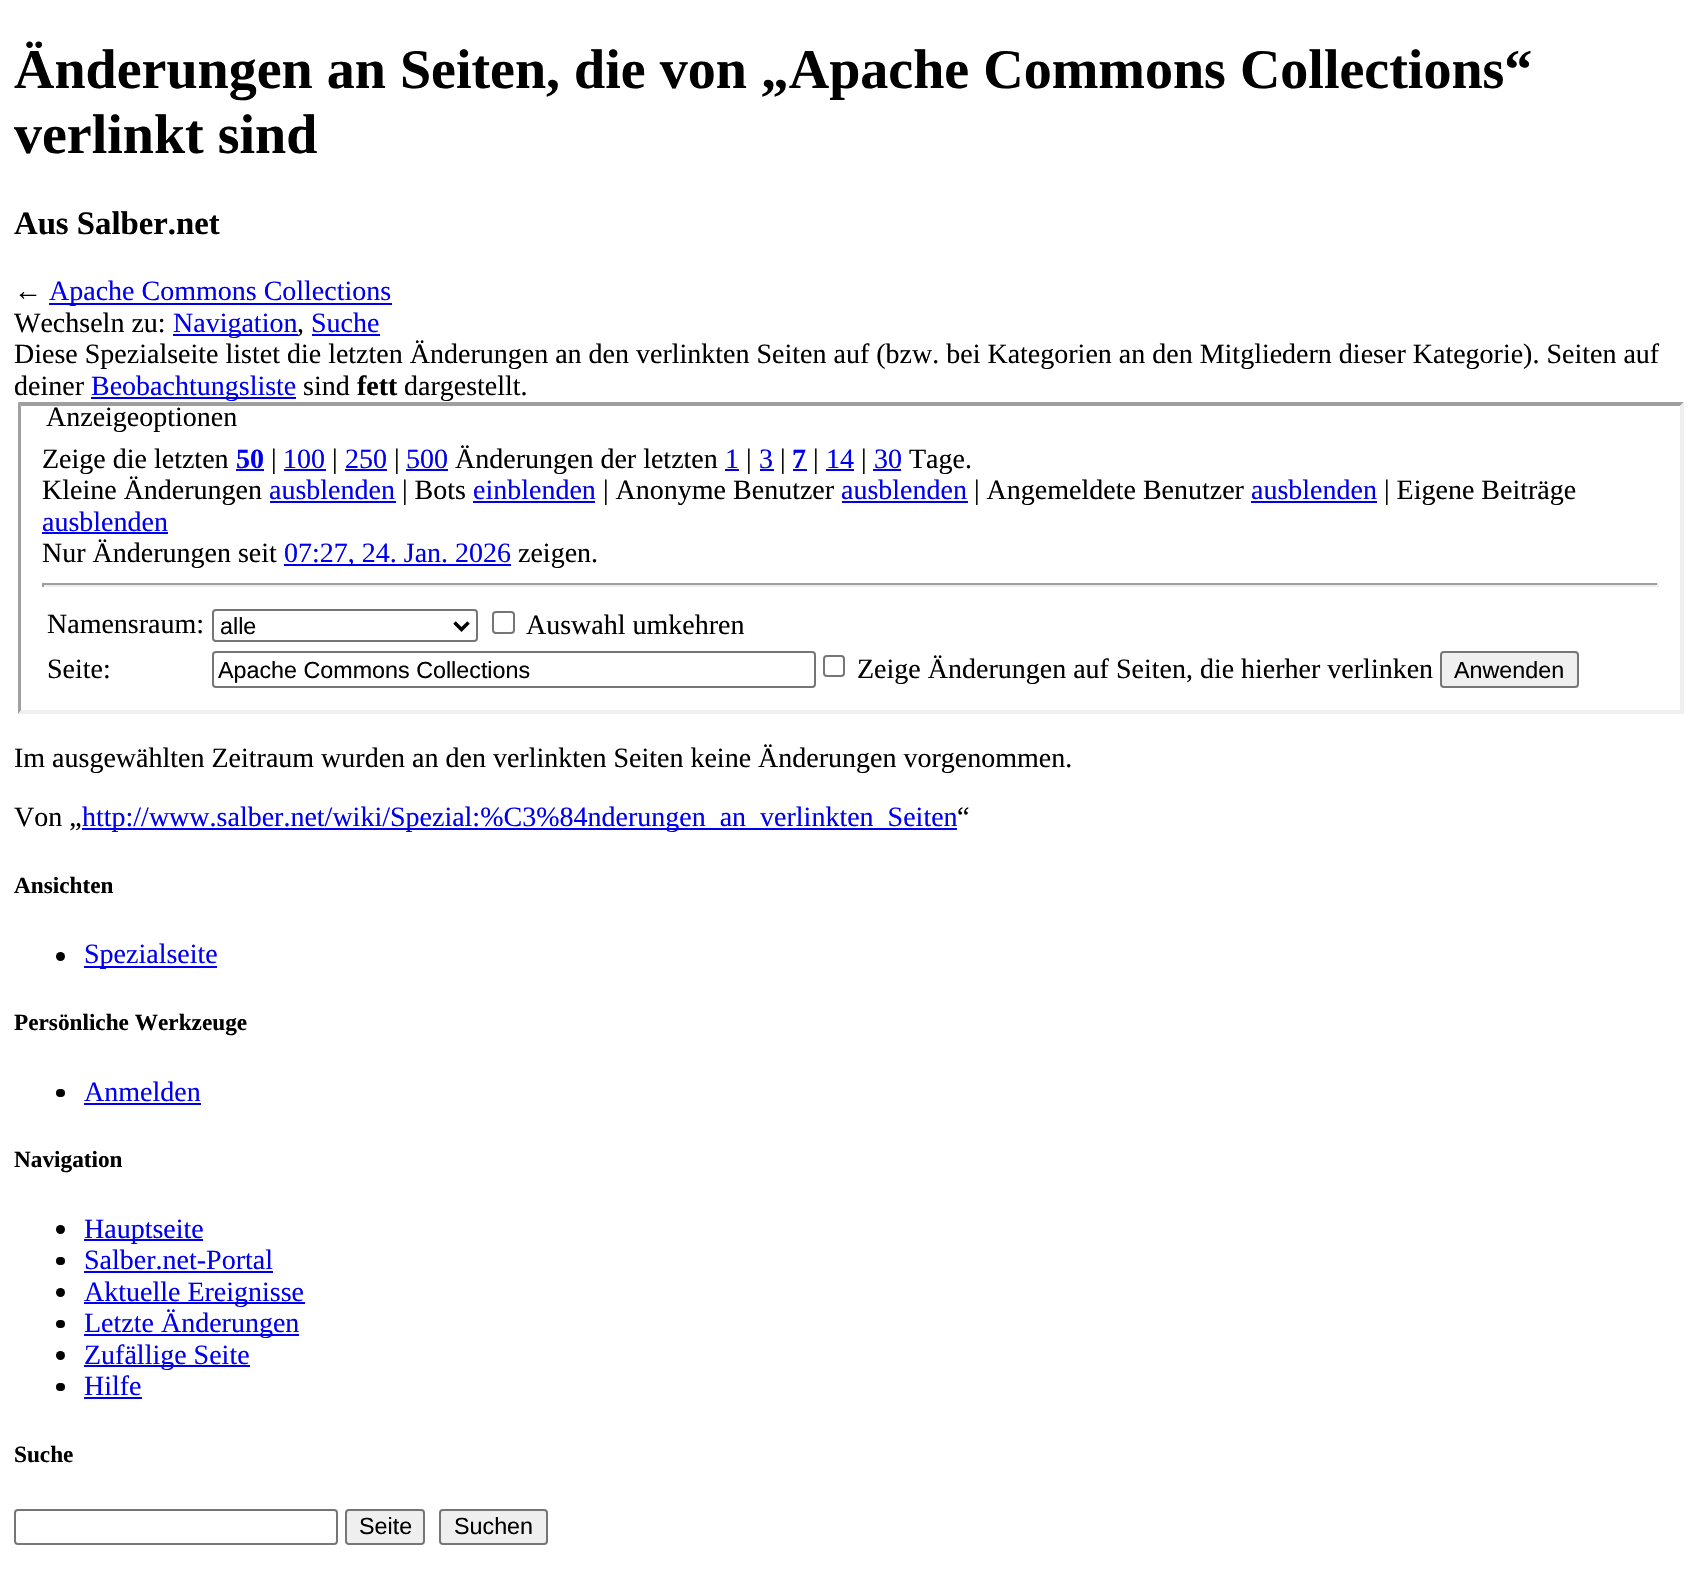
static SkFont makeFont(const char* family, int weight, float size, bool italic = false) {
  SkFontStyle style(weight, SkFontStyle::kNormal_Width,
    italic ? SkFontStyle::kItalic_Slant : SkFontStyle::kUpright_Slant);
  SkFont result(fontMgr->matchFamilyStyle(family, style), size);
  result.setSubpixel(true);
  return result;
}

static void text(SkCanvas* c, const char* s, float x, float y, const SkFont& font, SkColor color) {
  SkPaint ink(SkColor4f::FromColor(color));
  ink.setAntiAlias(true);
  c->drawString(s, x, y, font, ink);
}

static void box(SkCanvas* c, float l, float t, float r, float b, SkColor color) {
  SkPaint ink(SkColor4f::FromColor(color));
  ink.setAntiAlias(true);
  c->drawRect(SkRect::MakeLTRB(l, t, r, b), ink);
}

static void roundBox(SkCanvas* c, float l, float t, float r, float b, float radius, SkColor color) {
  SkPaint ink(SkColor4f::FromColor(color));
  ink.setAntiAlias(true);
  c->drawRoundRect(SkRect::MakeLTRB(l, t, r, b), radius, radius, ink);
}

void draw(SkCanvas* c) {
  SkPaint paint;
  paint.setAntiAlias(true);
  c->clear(0xffffffff);
  SkFont face1 = makeFont("Liberation Serif", 700, 56);
  text(c, "Änderungen an Seiten, die von „Apache Commons Collections“", 14, 88, face1, 0xff000000);
  text(c, "verlinkt sind", 14, 153, face1, 0xff000000);
  SkFont face2 = makeFont("Liberation Serif", 700, 32.75f);
  text(c, "Aus Salber.net", 14, 234, face2, 0xff000000);
  SkFont face3 = makeFont("Liberation Serif", 400, 28);
  text(c, "←", 14, 300, face3, 0xff000000);
  box(c, 49, 303, 392, 305, 0xff0000ee);
  text(c, "Apache Commons Collections", 49, 300, face3, 0xff0000ee);
  text(c, "Wechseln zu:", 14, 332, face3, 0xff000000);
  box(c, 173, 334, 298, 336, 0xff0000ee);
  text(c, "Navigation", 173, 332, face3, 0xff0000ee);
  text(c, ",", 297, 332, face3, 0xff000000);
  text(c, "Suche", 311, 332, face3, 0xff0000ee);
  box(c, 312, 334, 380, 336, 0xff0000ee);
  text(c, "Diese Spezialseite listet die letzten Änderungen an den verlinkten Seiten auf (bzw. bei Kategorien an den Mitgliedern dieser Kategorie). Seiten auf", 14, 363, face3, 0xff000000);
  text(c, "deiner", 14, 395, face3, 0xff000000);
  box(c, 91, 397, 296, 399, 0xff0000ee);
  text(c, "Beobachtungsliste", 91, 395, face3, 0xff0000ee);
  text(c, "sind", 303, 395, face3, 0xff000000);
  SkFont face4 = makeFont("Liberation Serif", 700, 28);
  text(c, "fett", 357, 395, face4, 0xff000000);
  text(c, "dargestellt.", 404, 395, face3, 0xff000000);
  paint.setColor(0xff9f9f9f);
  c->drawPath(SkPathBuilder().moveTo(18, 402).lineTo(1684, 402).lineTo(1680, 406).lineTo(21, 406).close().detach(), paint);
  paint.setColor(0xffefefef);
  c->drawPath(SkPathBuilder().moveTo(1684, 402).lineTo(1684, 714).lineTo(1680, 710).lineTo(1680, 406).close().detach(), paint);
  c->drawPath(SkPathBuilder().moveTo(1684, 714).lineTo(18, 714).lineTo(21, 710).lineTo(1680, 710).close().detach(), paint);
  paint.setColor(0xff9f9f9f);
  c->drawPath(SkPathBuilder().moveTo(18, 714).lineTo(18, 402).lineTo(21, 406).lineTo(21, 710).close().detach(), paint);
  text(c, "Anzeigeoptionen", 46, 426, face3, 0xff000000);
  text(c, "Zeige die letzten", 42, 468, face3, 0xff000000);
  text(c, "50", 236, 468, face4, 0xff0000ee);
  box(c, 236, 469, 264, 471, 0xff0000ee);
  text(c, "|", 271, 468, face3, 0xff000000);
  text(c, "100", 283, 468, face3, 0xff0000ee);
  box(c, 284, 469, 326, 471, 0xff0000ee);
  text(c, "|", 332, 468, face3, 0xff000000);
  text(c, "250", 345, 468, face3, 0xff0000ee);
  box(c, 345, 469, 387, 471, 0xff0000ee);
  text(c, "|", 394, 468, face3, 0xff000000);
  text(c, "500", 406, 468, face3, 0xff0000ee);
  box(c, 406, 469, 448, 471, 0xff0000ee);
  text(c, "Änderungen der letzten", 455, 468, face3, 0xff000000);
  text(c, "1", 725, 468, face3, 0xff0000ee);
  box(c, 725, 469, 739, 471, 0xff0000ee);
  text(c, "|", 746, 468, face3, 0xff000000);
  text(c, "3", 759, 468, face3, 0xff0000ee);
  box(c, 760, 469, 774, 471, 0xff0000ee);
  text(c, "|", 780, 468, face3, 0xff000000);
  text(c, "7", 792, 468, face4, 0xff0000ee);
  box(c, 793, 469, 807, 471, 0xff0000ee);
  text(c, "|", 813, 468, face3, 0xff000000);
  text(c, "14", 826, 468, face3, 0xff0000ee);
  box(c, 826, 469, 854, 471, 0xff0000ee);
  text(c, "|", 861, 468, face3, 0xff000000);
  text(c, "30", 874, 468, face3, 0xff0000ee);
  box(c, 873, 469, 901, 471, 0xff0000ee);
  text(c, "Tage.", 909, 468, face3, 0xff000000);
  text(c, "Kleine Änderungen", 42, 499, face3, 0xff000000);
  text(c, "ausblenden", 269, 499, face3, 0xff0000ee);
  box(c, 270, 501, 396, 503, 0xff0000ee);
  text(c, "| Bots", 402, 499, face3, 0xff000000);
  text(c, "einblenden", 473, 499, face3, 0xff0000ee);
  box(c, 473, 501, 595, 503, 0xff0000ee);
  text(c, "| Anonyme Benutzer", 603, 499, face3, 0xff000000);
  text(c, "ausblenden", 841, 499, face3, 0xff0000ee);
  box(c, 842, 501, 968, 503, 0xff0000ee);
  text(c, "| Angemeldete Benutzer", 974, 499, face3, 0xff000000);
  text(c, "ausblenden", 1251, 499, face3, 0xff0000ee);
  box(c, 1251, 501, 1377, 503, 0xff0000ee);
  text(c, "| Eigene Beiträge", 1384, 499, face3, 0xff000000);
  text(c, "ausblenden", 42, 531, face3, 0xff0000ee);
  box(c, 42, 532, 168, 534, 0xff0000ee);
  text(c, "Nur Änderungen seit", 42, 562, face3, 0xff000000);
  box(c, 284, 564, 511, 566, 0xff0000ee);
  text(c, "07:27, 24. Jan. 2026", 284, 562, face3, 0xff0000ee);
  text(c, "zeigen.", 518, 562, face3, 0xff000000);
  box(c, 42, 583, 1659, 585, 0xff9f9f9f);
  box(c, 1657, 583, 1659, 587, 0xffeeeeee);
  box(c, 42, 585, 1659, 587, 0xffeeeeee);
  box(c, 42, 583, 44, 587, 0xff9f9f9f);
  text(c, "Namensraum:", 47, 633, face3, 0xff000000);
  paint.setStyle(SkPaint::kStroke_Style);
  paint.setStrokeWidth(2);
  paint.setColor(0xff767676);
  c->drawRoundRect(SkRect::MakeLTRB(213, 610, 477, 641), 3, 3, paint);
  paint.setStrokeWidth(3.5f);
  paint.setColor(0xff000000);
  c->drawPath(SkPathBuilder().moveTo(454.5f, 622.5f).lineTo(461.5f, 629.5f).lineTo(468.5f, 622.5f).detach(), paint);
  SkFont face5 = makeFont("Liberation Sans", 400, 23.3f);
  text(c, "alle", 220, 634, face5, 0xff000000);
  paint.setStrokeWidth(2);
  paint.setColor(0xff767676);
  c->drawRoundRect(SkRect::MakeLTRB(493, 612, 514, 633), 3, 3, paint);
  text(c, "Auswahl umkehren", 526, 634, face3, 0xff000000);
  text(c, "Seite:", 47, 678, face3, 0xff000000);
  c->drawRoundRect(SkRect::MakeLTRB(213, 652, 815, 687), 3, 3, paint);
  text(c, "Apache Commons Collections", 218, 678, face5, 0xff000000);
  c->drawRoundRect(SkRect::MakeLTRB(824, 656, 844, 676), 3, 3, paint);
  text(c, "Zeige Änderungen auf Seiten, die hierher verlinken", 857, 678, face3, 0xff000000);
  paint.setStyle(SkPaint::kFill_Style);
  paint.setColor(0xffefefef);
  c->drawRoundRect(SkRect::MakeLTRB(1441, 652, 1578, 687), 3, 3, paint);
  paint.setStyle(SkPaint::kStroke_Style);
  paint.setColor(0xff767676);
  c->drawRoundRect(SkRect::MakeLTRB(1441, 652, 1578, 687), 3, 3, paint);
  text(c, "Anwenden", 1454, 678, face5, 0xff000000);
  text(c, "Im ausgewählten Zeitraum wurden an den verlinkten Seiten keine Änderungen vorgenommen.", 14, 767, face3, 0xff000000);
  text(c, "Von „", 14, 826, face3, 0xff000000);
  box(c, 82, 828, 957, 830, 0xff0000ee);
  text(c, "http://www.salber.net/wiki/Spezial:%C3%84nderungen_an_verlinkten_Seiten", 82, 826, face3, 0xff0000ee);
  text(c, "“", 957, 826, face3, 0xff000000);
  SkFont face6 = makeFont("Liberation Serif", 700, 23.25f);
  text(c, "Ansichten", 14, 893, face6, 0xff000000);
  paint.setStyle(SkPaint::kFill_Style);
  paint.setColor(0xff000000);
  c->drawCircle(60.5f, 956.5f, 4.5f, paint);
  box(c, 84, 966, 217, 968, 0xff0000ee);
  text(c, "Spezialseite", 84, 963, face3, 0xff0000ee);
  text(c, "Persönliche Werkzeuge", 14, 1030, face6, 0xff000000);
  roundBox(c, 56, 1089, 65, 1097, 4, 0xff000000);
  text(c, "Anmelden", 84, 1101, face3, 0xff0000ee);
  box(c, 84, 1103, 201, 1105, 0xff0000ee);
  text(c, "Navigation", 14, 1167, face6, 0xff000000);
  c->drawCircle(60.5f, 1229.5f, 4.5f, paint);
  box(c, 84, 1239, 203, 1241, 0xff0000ee);
  text(c, "Hauptseite", 84, 1238, face3, 0xff0000ee);
  roundBox(c, 56, 1257, 65, 1265, 4, 0xff000000);
  text(c, "Salber.net-Portal", 84, 1269, face3, 0xff0000ee);
  box(c, 84, 1271, 273, 1273, 0xff0000ee);
  c->drawCircle(60.5f, 1292.5f, 4.5f, paint);
  box(c, 84, 1302, 305, 1304, 0xff0000ee);
  text(c, "Aktuelle Ereignisse", 84, 1301, face3, 0xff0000ee);
  roundBox(c, 56, 1320, 65, 1328, 4, 0xff000000);
  box(c, 84, 1334, 299, 1336, 0xff0000ee);
  text(c, "Letzte Änderungen", 84, 1332, face3, 0xff0000ee);
  c->drawCircle(60.5f, 1355.5f, 4.5f, paint);
  box(c, 84, 1365, 250, 1367, 0xff0000ee);
  text(c, "Zufällige Seite", 84, 1364, face3, 0xff0000ee);
  roundBox(c, 56, 1383, 65, 1391, 4, 0xff000000);
  text(c, "Hilfe", 84, 1395, face3, 0xff0000ee);
  box(c, 84, 1397, 142, 1399, 0xff0000ee);
  text(c, "Suche", 14, 1462, face6, 0xff000000);
  paint.setStyle(SkPaint::kStroke_Style);
  paint.setColor(0xff767676);
  c->drawRoundRect(SkRect::MakeLTRB(15, 1510, 337, 1544), 3, 3, paint);
  paint.setStyle(SkPaint::kFill_Style);
  paint.setColor(0xffefefef);
  c->drawRoundRect(SkRect::MakeLTRB(346, 1510, 424, 1544), 3, 3, paint);
  paint.setStyle(SkPaint::kStroke_Style);
  paint.setColor(0xff767676);
  c->drawRoundRect(SkRect::MakeLTRB(346, 1510, 424, 1544), 3, 3, paint);
  text(c, "Seite", 359, 1534, face5, 0xff000000);
  paint.setStyle(SkPaint::kFill_Style);
  paint.setColor(0xffefefef);
  c->drawRoundRect(SkRect::MakeLTRB(440, 1510, 547, 1544), 3, 3, paint);
  paint.setStyle(SkPaint::kStroke_Style);
  paint.setColor(0xff767676);
  c->drawRoundRect(SkRect::MakeLTRB(440, 1510, 547, 1544), 3, 3, paint);
  text(c, "Suchen", 454, 1534, face5, 0xff000000);
}
